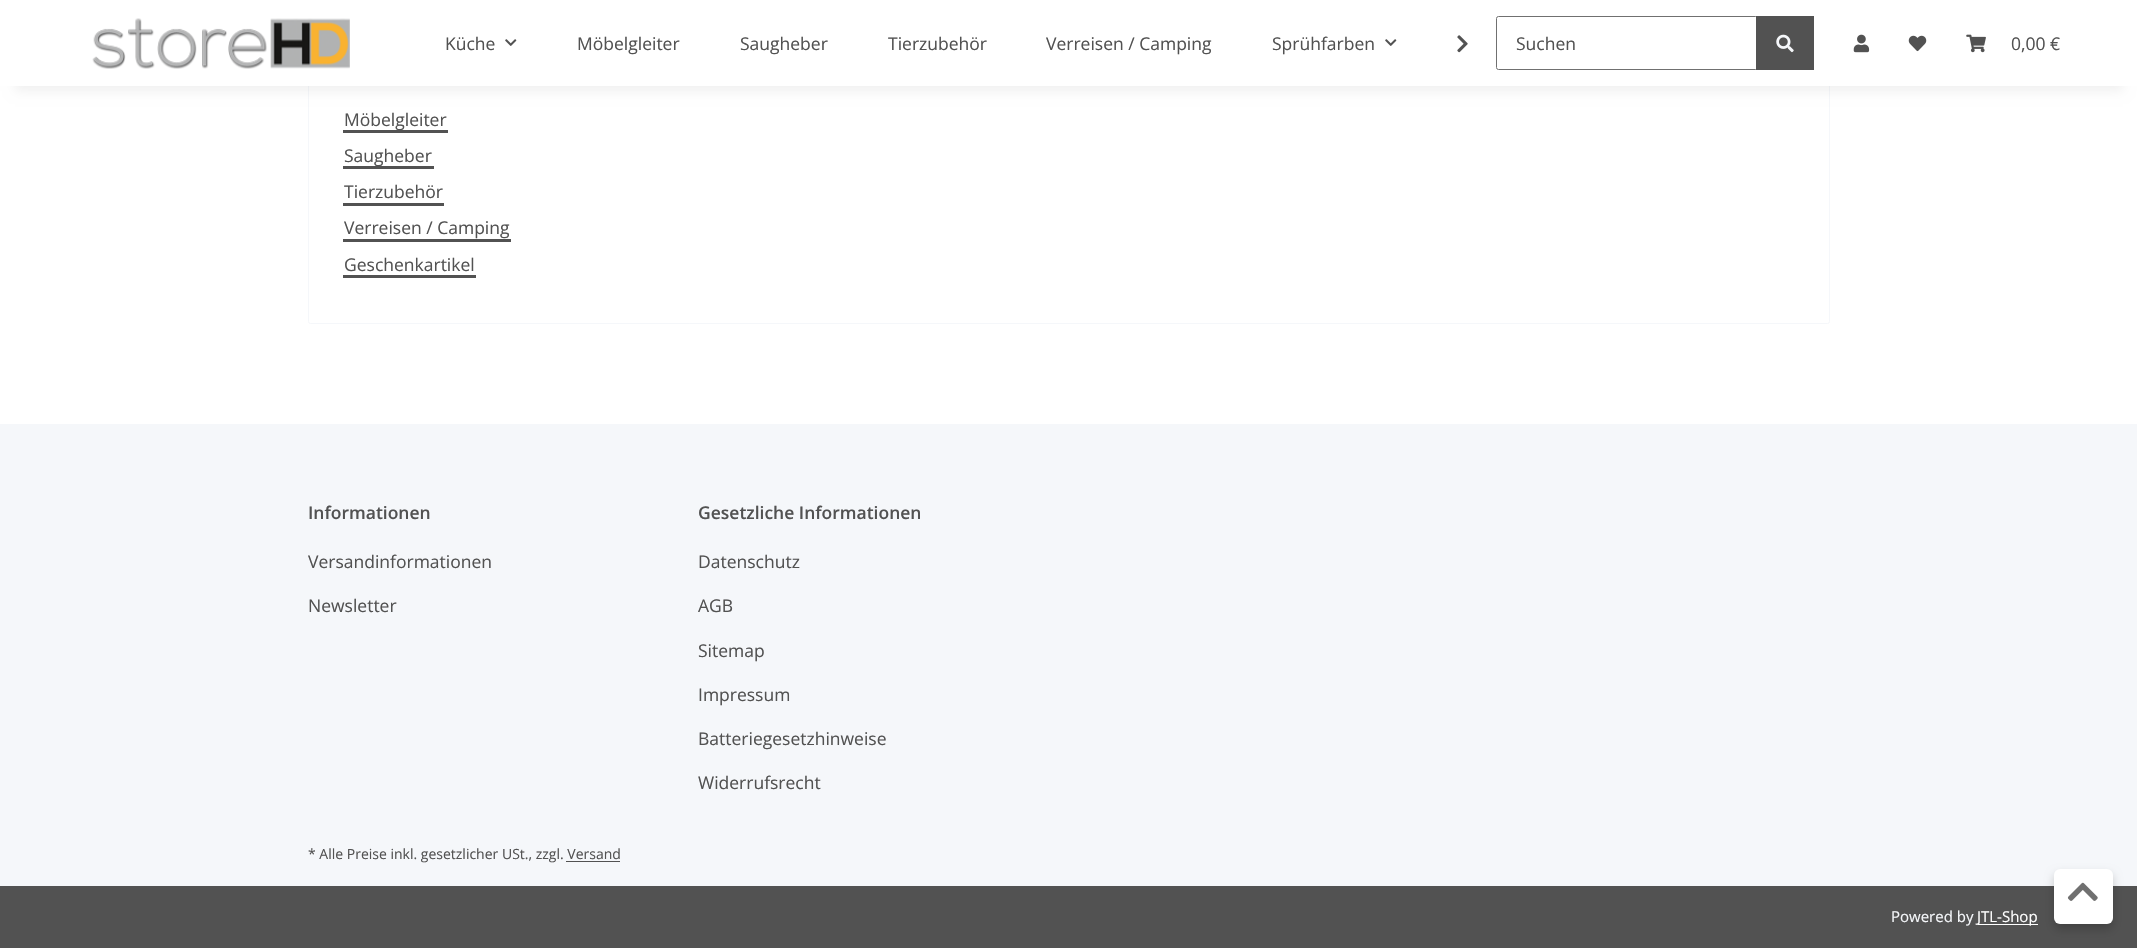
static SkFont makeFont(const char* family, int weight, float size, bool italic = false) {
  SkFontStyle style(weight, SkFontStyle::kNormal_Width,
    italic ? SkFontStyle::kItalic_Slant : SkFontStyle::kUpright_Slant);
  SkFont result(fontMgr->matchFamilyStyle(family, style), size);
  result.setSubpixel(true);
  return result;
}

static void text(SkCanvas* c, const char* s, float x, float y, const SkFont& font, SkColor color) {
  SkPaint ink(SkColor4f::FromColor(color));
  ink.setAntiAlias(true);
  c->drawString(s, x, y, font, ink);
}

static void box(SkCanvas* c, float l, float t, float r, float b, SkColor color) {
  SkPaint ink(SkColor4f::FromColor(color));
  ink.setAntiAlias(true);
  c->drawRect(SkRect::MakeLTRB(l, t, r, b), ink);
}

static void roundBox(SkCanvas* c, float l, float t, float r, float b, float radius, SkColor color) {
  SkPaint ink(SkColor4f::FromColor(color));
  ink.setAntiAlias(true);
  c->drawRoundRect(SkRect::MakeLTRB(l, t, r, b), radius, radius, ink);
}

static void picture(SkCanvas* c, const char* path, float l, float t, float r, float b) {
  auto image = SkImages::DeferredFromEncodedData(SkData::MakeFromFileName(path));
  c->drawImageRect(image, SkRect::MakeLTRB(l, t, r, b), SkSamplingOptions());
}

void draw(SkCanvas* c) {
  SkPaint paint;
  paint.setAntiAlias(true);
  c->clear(0xfff5f7fa);
  box(c, 0, 86, 2137, 424, 0xffffffff);
  paint.setStyle(SkPaint::kStroke_Style);
  paint.setStrokeWidth(1);
  paint.setColor(0xfff5f7fa);
  c->drawRoundRect(SkRect::MakeLTRB(308.5f, -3.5f, 1829.5f, 323.5f), 2, 2, paint);
  paint.setStyle(SkPaint::kFill_Style);
  paint.setColor(0x0f000000);
  paint.setMaskFilter(SkMaskFilter::MakeBlur(kNormal_SkBlurStyle, 5.5f));
  c->drawRect(SkRect::MakeLTRB(15, 35, 2123, 91), paint);
  paint.setMaskFilter(nullptr);
  box(c, 0, 0, 2137, 86, 0xffffffff);
  picture(c, "img_01.png", 92, 18, 350, 69);
  SkFont face1 = makeFont("Open Sans", 400, 17.5f);
  text(c, "Küche", 445, 50, face1, 0xff525252);
  picture(c, "img_02.png", 505, 39, 517, 46);
  text(c, "Möbelgleiter", 577, 50, face1, 0xff525252);
  text(c, "Saugheber", 740, 50, face1, 0xff525252);
  text(c, "Tierzubehör", 888, 50, face1, 0xff525252);
  text(c, "Verreisen / Camping", 1046, 50, face1, 0xff525252);
  text(c, "Sprühfarben", 1272, 50, face1, 0xff525252);
  picture(c, "img_02.png", 1385, 39, 1397, 46);
  picture(c, "img_03.png", 1457, 35, 1468, 53);
  paint.setStyle(SkPaint::kStroke_Style);
  paint.setColor(0xff707070);
  c->drawRoundRect(SkRect::MakeLTRB(1496.5f, 16.5f, 1757.5f, 69.5f), 2, 2, paint);
  text(c, "Suchen", 1516, 50, face1, 0xff525252);
  box(c, 1756, 16, 1814, 70, 0xff525252);
  picture(c, "img_04.png", 1776, 34, 1794, 53);
  picture(c, "img_05.png", 1853, 34, 1870, 53);
  picture(c, "img_06.png", 1908, 35, 1927, 52);
  picture(c, "img_07.png", 1966, 34, 1986, 53);
  text(c, "0,00 €", 2011, 50, face1, 0xff525252);
  text(c, "Möbelgleiter", 344, 126, face1, 0xff525252);
  box(c, 343, 130, 448, 133, 0xff525252);
  text(c, "Saugheber", 344, 162, face1, 0xff525252);
  box(c, 343, 166, 434, 169, 0xff525252);
  text(c, "Tierzubehör", 344, 198, face1, 0xff525252);
  box(c, 343, 203, 444, 206, 0xff525252);
  text(c, "Verreisen / Camping", 344, 234, face1, 0xff525252);
  box(c, 343, 239, 511, 242, 0xff525252);
  text(c, "Geschenkartikel", 344, 271, face1, 0xff525252);
  box(c, 343, 275, 476, 278, 0xff525252);
  SkFont face2 = makeFont("Open Sans", 600, 17.5f);
  text(c, "Informationen", 308, 519, face2, 0xff525252);
  text(c, "Versandinformationen", 308, 568, face1, 0xff525252);
  text(c, "Newsletter", 308, 612, face1, 0xff525252);
  text(c, "Gesetzliche Informationen", 698, 519, face2, 0xff525252);
  text(c, "Datenschutz", 698, 568, face1, 0xff525252);
  text(c, "AGB", 698, 612, face1, 0xff525252);
  text(c, "Sitemap", 698, 657, face1, 0xff525252);
  text(c, "Impressum", 698, 701, face1, 0xff525252);
  text(c, "Batteriegesetzhinweise", 698, 745, face1, 0xff525252);
  text(c, "Widerrufsrecht", 698, 789, face1, 0xff525252);
  SkFont face3 = makeFont("Open Sans", 400, 14);
  text(c, "* Alle Preise inkl. gesetzlicher USt., zzgl. Versand", 308, 859, face3, 0xff525252);
  box(c, 566, 861, 620, 862, 0xff525252);
  box(c, 0, 886, 2137, 948, 0xff525252);
  SkFont face4 = makeFont("Open Sans", 400, 15);
  text(c, "Powered by", 1891, 922, face4, 0xfff5f7fa);
  box(c, 1978, 924, 2038, 925, 0xffffffff);
  text(c, "JTL-Shop", 1977, 922, face4, 0xffffffff);
  paint.setStyle(SkPaint::kFill_Style);
  paint.setColor(0x33000000);
  paint.setMaskFilter(SkMaskFilter::MakeBlur(kNormal_SkBlurStyle, 5));
  c->drawRoundRect(SkRect::MakeLTRB(2054, 874, 2113, 929), 6, 6, paint);
  paint.setMaskFilter(nullptr);
  roundBox(c, 2054, 869, 2113, 924, 6, 0xffffffff);
  picture(c, "img_08.png", 2067, 882, 2098, 901);
}
